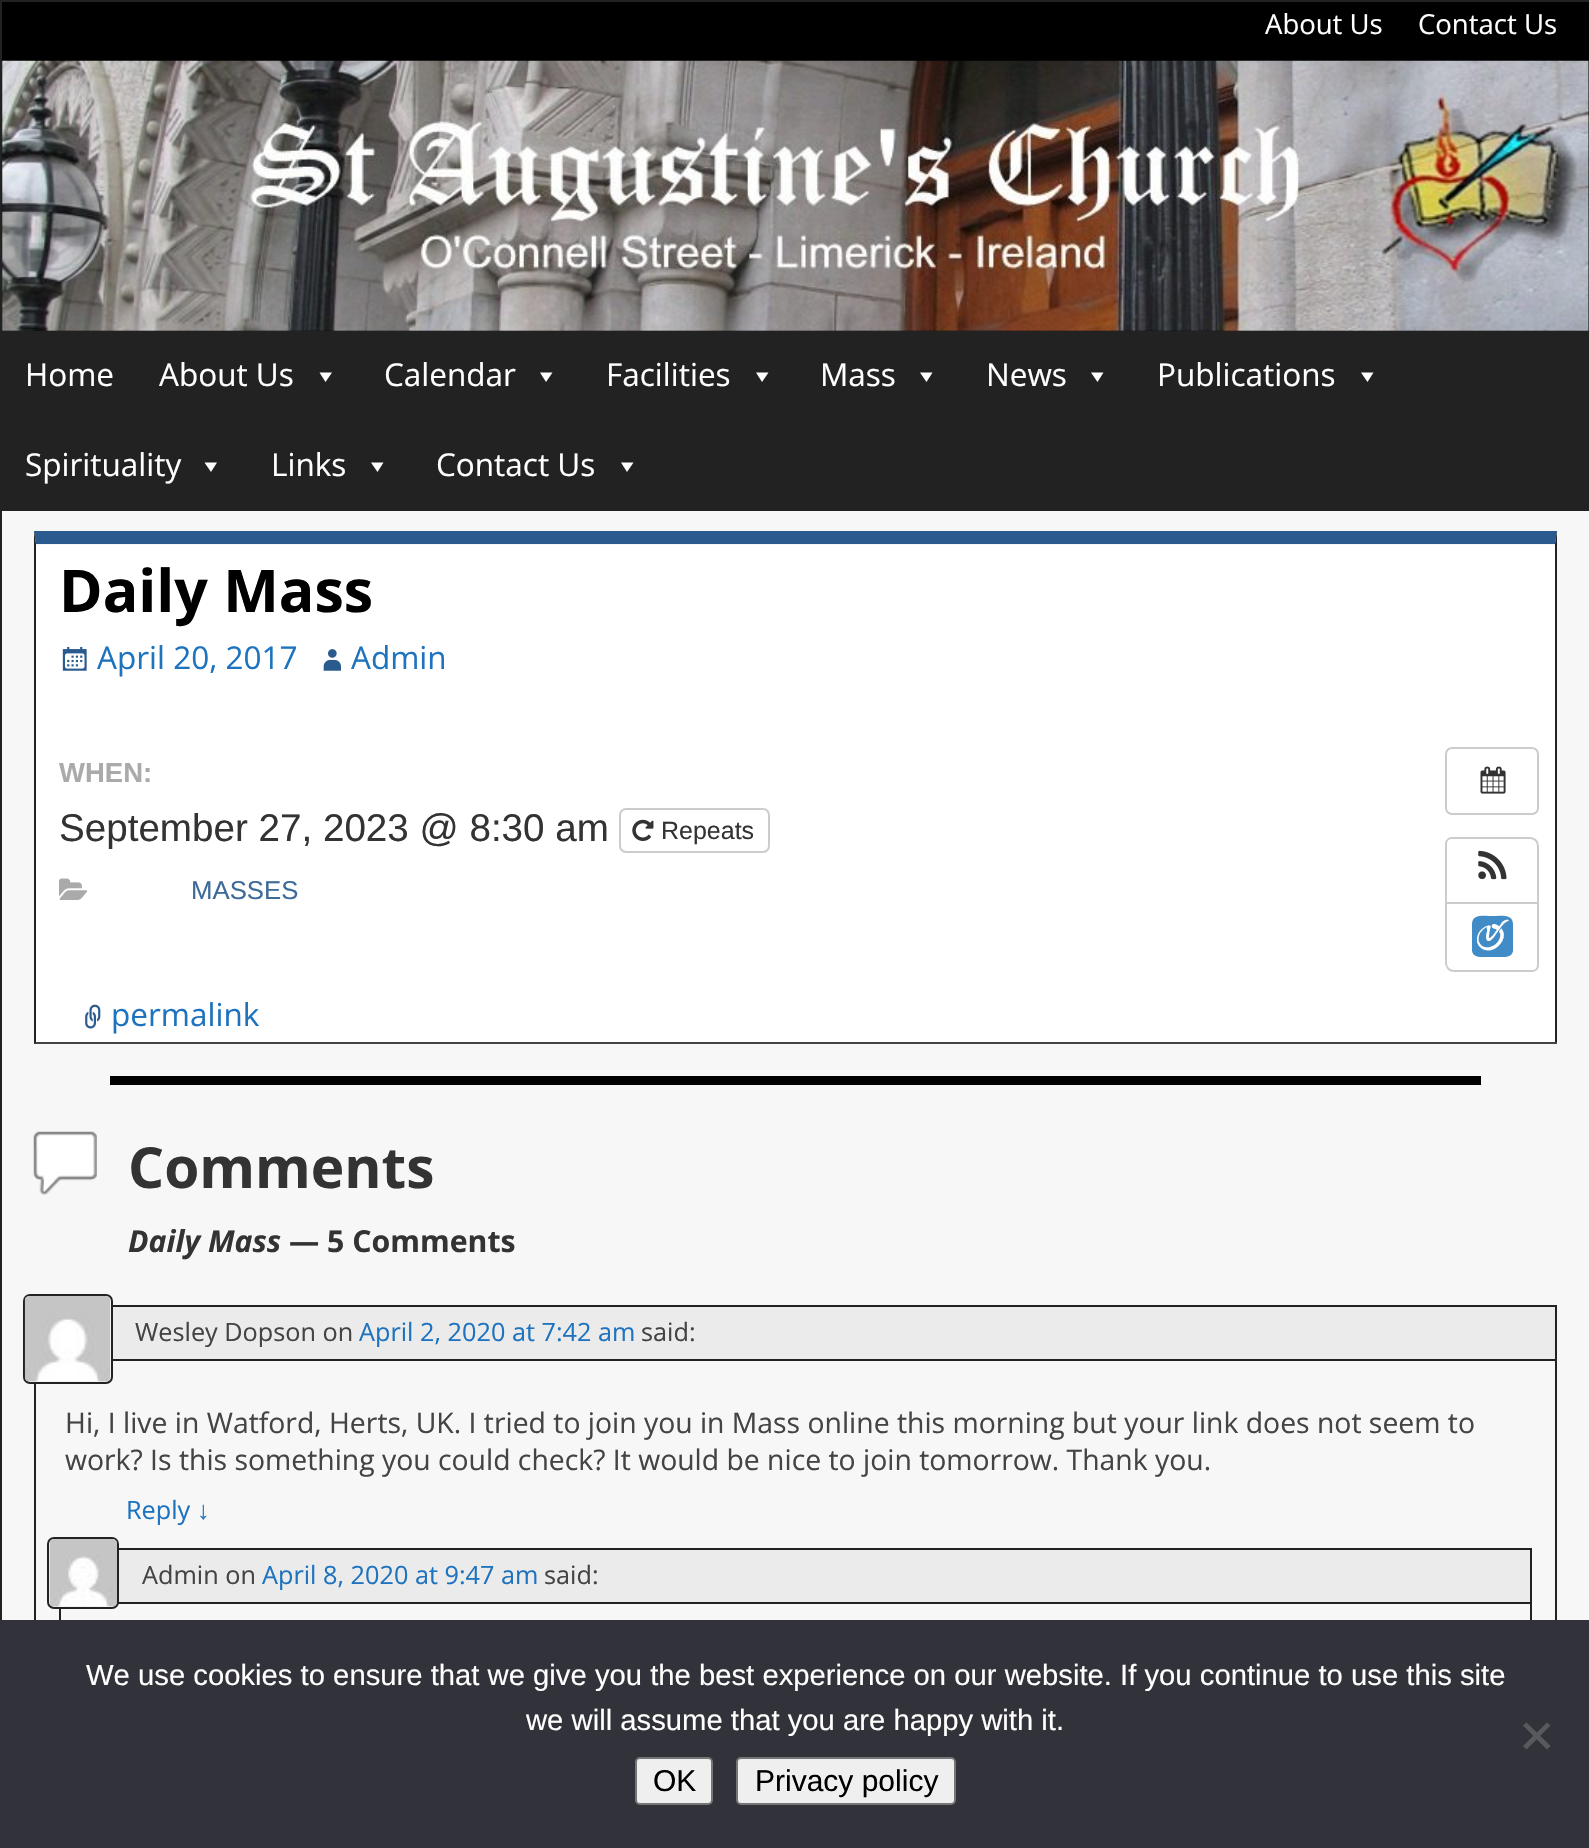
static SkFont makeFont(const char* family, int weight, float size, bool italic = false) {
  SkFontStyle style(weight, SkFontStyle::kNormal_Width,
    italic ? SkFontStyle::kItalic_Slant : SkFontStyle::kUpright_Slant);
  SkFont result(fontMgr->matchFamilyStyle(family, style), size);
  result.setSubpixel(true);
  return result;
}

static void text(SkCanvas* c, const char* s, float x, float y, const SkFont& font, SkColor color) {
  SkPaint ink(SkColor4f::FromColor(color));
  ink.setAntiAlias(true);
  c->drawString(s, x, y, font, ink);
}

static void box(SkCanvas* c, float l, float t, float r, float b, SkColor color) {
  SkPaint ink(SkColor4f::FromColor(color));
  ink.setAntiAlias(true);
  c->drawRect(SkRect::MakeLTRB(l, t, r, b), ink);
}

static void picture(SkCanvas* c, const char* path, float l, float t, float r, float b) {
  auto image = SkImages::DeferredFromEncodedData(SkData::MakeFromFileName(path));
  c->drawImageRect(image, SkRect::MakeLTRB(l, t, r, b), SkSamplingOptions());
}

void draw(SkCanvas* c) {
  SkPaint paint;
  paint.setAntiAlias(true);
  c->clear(0xfff7f7f7);
  paint.setStyle(SkPaint::kStroke_Style);
  paint.setStrokeWidth(2);
  paint.setColor(0xff222222);
  c->drawRect(SkRect::MakeLTRB(1, 1, 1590, 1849), paint);
  box(c, 2, 2, 1589, 331, 0xff000000);
  SkFont face1 = makeFont("Open Sans", 400, 27.5f);
  text(c, "About Us", 1265, 34, face1, 0xffffffff);
  text(c, "Contact Us", 1418, 34, face1, 0xffffffff);
  picture(c, "img_01.png", 2, 60, 1589, 331);
  box(c, 2, 331, 1589, 511, 0xff222222);
  SkFont face2 = makeFont("Open Sans", 400, 31.5f);
  text(c, "Home", 25, 386, face2, 0xffffffff);
  text(c, "About Us", 159, 386, face2, 0xffffffff);
  paint.setStyle(SkPaint::kFill_Style);
  paint.setColor(0xffffffff);
  c->drawPath(SkPathBuilder().moveTo(332, 372.5f).lineTo(325.5f, 382).lineTo(319.5f, 372.5f).close().detach(), paint);
  text(c, "Calendar", 384, 386, face2, 0xffffffff);
  c->drawPath(SkPathBuilder().moveTo(552.5f, 372.5f).lineTo(546, 382).lineTo(540, 372.5f).close().detach(), paint);
  text(c, "Facilities", 606, 386, face2, 0xffffffff);
  c->drawPath(SkPathBuilder().moveTo(768.5f, 372.5f).lineTo(762, 382).lineTo(756, 372.5f).close().detach(), paint);
  text(c, "Mass", 820, 386, face2, 0xffffffff);
  c->drawPath(SkPathBuilder().moveTo(932.5f, 372.5f).lineTo(926.5f, 382).lineTo(920, 372.5f).close().detach(), paint);
  text(c, "News", 986, 386, face2, 0xffffffff);
  c->drawPath(SkPathBuilder().moveTo(1103.5f, 372.5f).lineTo(1097.5f, 382).lineTo(1091, 372.5f).close().detach(), paint);
  text(c, "Publications", 1157, 386, face2, 0xffffffff);
  c->drawPath(SkPathBuilder().moveTo(1373.5f, 372.5f).lineTo(1367.5f, 382).lineTo(1361, 372.5f).close().detach(), paint);
  text(c, "Spirituality", 25, 476, face2, 0xffffffff);
  c->drawPath(SkPathBuilder().moveTo(217, 462.5f).lineTo(211, 472).lineTo(204.5f, 462.5f).close().detach(), paint);
  text(c, "Links", 271, 476, face2, 0xffffffff);
  c->drawPath(SkPathBuilder().moveTo(383.5f, 462.5f).lineTo(377.5f, 472).lineTo(371, 462.5f).close().detach(), paint);
  text(c, "Contact Us", 436, 476, face2, 0xffffffff);
  c->drawPath(SkPathBuilder().moveTo(633.5f, 462.5f).lineTo(627, 472).lineTo(621, 462.5f).close().detach(), paint);
  box(c, 36, 545, 1555, 1042, 0xffffffff);
  paint.setColor(0xff2a5a8e);
  c->drawPath(SkPathBuilder().moveTo(34, 531).lineTo(1557, 531).lineTo(1555, 544).lineTo(36, 544).close().detach(), paint);
  paint.setColor(0xff222222);
  c->drawPath(SkPathBuilder().moveTo(1557, 531).lineTo(1557, 1044).lineTo(1555, 1042).lineTo(1555, 544).close().detach(), paint);
  box(c, 34, 1042, 1557, 1044, 0xff444444);
  c->drawPath(SkPathBuilder().moveTo(34, 1044).lineTo(34, 531).lineTo(36, 544).lineTo(36, 1042).close().detach(), paint);
  SkFont face3 = makeFont("Open Sans", 700, 59);
  text(c, "Daily Mass", 59, 612, face3, 0xff000000);
  picture(c, "img_02.png", 62, 646, 87, 671);
  text(c, "April 20, 2017", 97, 669, face2, 0xff1e73be);
  picture(c, "img_03.png", 323, 649, 341, 671);
  text(c, "Admin", 351, 669, face2, 0xff1e73be);
  SkFont face4 = makeFont("Liberation Sans", 700, 27.5f);
  text(c, "WHEN:", 59, 782, face4, 0xffaaaaaa);
  SkFont face5 = makeFont("Liberation Sans", 400, 38.6f);
  text(c, "September 27, 2023 @ 8:30 am", 59, 841, face5, 0xff333333);
  paint.setStyle(SkPaint::kStroke_Style);
  paint.setColor(0xffcccccc);
  c->drawRoundRect(SkRect::MakeLTRB(620, 809, 769, 852), 6, 6, paint);
  picture(c, "img_04.png", 632, 819, 654, 841);
  SkFont face6 = makeFont("Liberation Sans", 400, 25);
  text(c, "Repeats", 661, 839, face6, 0xff333333);
  picture(c, "img_05.png", 59, 878, 88, 900);
  SkFont face7 = makeFont("Liberation Sans", 400, 25.75f);
  text(c, "MASSES", 191, 899, face7, 0xff3d6b99);
  c->drawRoundRect(SkRect::MakeLTRB(1446, 748, 1538, 814), 6, 6, paint);
  picture(c, "img_06.png", 1480, 766, 1506, 794);
  c->drawPath(SkPathBuilder().moveTo(1452, 838).lineTo(1530, 838).cubicTo(1534.5f, 838, 1538, 841.5f, 1538, 846).lineTo(1538, 904).lineTo(1446, 904).lineTo(1446, 844).cubicTo(1446, 840.5f, 1448.5f, 838, 1452, 838).close().detach(), paint);
  picture(c, "img_07.png", 1478, 850, 1507, 880);
  paint.setStyle(SkPaint::kFill_Style);
  paint.setColor(0xffffffff);
  c->drawPath(SkPathBuilder().moveTo(1446, 903).lineTo(1538, 903).lineTo(1538, 965).cubicTo(1538, 968.5f, 1535.5f, 971, 1532, 971).lineTo(1454, 971).cubicTo(1449.5f, 971, 1446, 967.5f, 1446, 963).close().detach(), paint);
  paint.setStyle(SkPaint::kStroke_Style);
  paint.setColor(0xffcccccc);
  c->drawPath(SkPathBuilder().moveTo(1446, 903).lineTo(1538, 903).lineTo(1538, 965).cubicTo(1538, 968.5f, 1535.5f, 971, 1532, 971).lineTo(1454, 971).cubicTo(1449.5f, 971, 1446, 967.5f, 1446, 963).close().detach(), paint);
  paint.setStyle(SkPaint::kFill_Style);
  paint.setColor(0xff418cc7);
  c->drawPath(SkPathBuilder().moveTo(1513, 924).lineTo(1513, 951).cubicTo(1512, 957, 1506, 957, 1501, 957).lineTo(1484, 957).cubicTo(1479, 957, 1473, 957, 1472, 951).lineTo(1472, 924).cubicTo(1472, 913, 1486, 916, 1492, 916).cubicTo(1499, 916, 1513, 913, 1513, 924).close().detach(), paint);
  SkFont face8 = makeFont("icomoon", 400, 32);
  text(c, "!", 1477, 949, face8, 0xffffffff);
  picture(c, "img_08.png", 85, 1004, 101, 1029);
  text(c, "permalink", 111, 1026, face2, 0xff1e73be);
  box(c, 110, 1076, 1481, 1085, 0xff000000);
  picture(c, "img_09.png", 33, 1131, 97, 1195);
  SkFont face9 = makeFont("Open Sans", 700, 56.75f);
  text(c, "Comments", 128, 1188, face9, 0xff333333);
  SkFont face10 = makeFont("Open Sans", 700, 30.25f, true);
  text(c, "Daily Mass", 128, 1252, face10, 0xff333333);
  SkFont face11 = makeFont("Open Sans", 700, 30.25f);
  text(c, "— 5 Comments", 289, 1252, face11, 0xff333333);
  paint.setStyle(SkPaint::kStroke_Style);
  paint.setColor(0xff222222);
  c->drawRect(SkRect::MakeLTRB(35, 1306, 1556, 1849), paint);
  box(c, 113, 1307, 1555, 1359, 0xffebebeb);
  box(c, 113, 1359, 1555, 1361, 0xff222222);
  paint.setStyle(SkPaint::kFill_Style);
  paint.setColor(0xfff0f0f0);
  c->drawRoundRect(SkRect::MakeLTRB(24, 1295, 112, 1383), 6, 6, paint);
  paint.setStyle(SkPaint::kStroke_Style);
  paint.setColor(0xff222222);
  c->drawRoundRect(SkRect::MakeLTRB(24, 1295, 112, 1383), 6, 6, paint);
  picture(c, "img_10.png", 24, 1296, 110, 1382);
  SkFont face12 = makeFont("Open Sans", 400, 25.25f);
  text(c, "Wesley Dopson on", 135, 1341, face12, 0xff444444);
  text(c, "April 2, 2020 at 7:42 am", 359, 1341, face12, 0xff1e73be);
  text(c, "said:", 641, 1341, face12, 0xff444444);
  SkFont face13 = makeFont("Open Sans", 400, 28.35f);
  text(c, "Hi, I live in Watford, Herts, UK. I tried to join you in Mass online this morning but your link does not seem to", 65, 1433, face13, 0xff444444);
  text(c, "work? Is this something you could check? It would be nice to join tomorrow. Thank you.", 65, 1470, face13, 0xff444444);
  text(c, "Reply", 126, 1519, face12, 0xff1e73be);
  SkFont face14 = makeFont("Liberation Sans", 400, 25.25f);
  text(c, "↓", 197, 1519, face14, 0xff1e73be);
  c->drawRect(SkRect::MakeLTRB(60, 1549, 1531, 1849), paint);
  box(c, 119, 1550, 1530, 1602, 0xffebebeb);
  box(c, 118, 1602, 1530, 1604, 0xff222222);
  paint.setStyle(SkPaint::kFill_Style);
  paint.setColor(0xfff0f0f0);
  c->drawRoundRect(SkRect::MakeLTRB(48, 1538, 118, 1608), 6, 6, paint);
  paint.setStyle(SkPaint::kStroke_Style);
  paint.setColor(0xff222222);
  c->drawRoundRect(SkRect::MakeLTRB(48, 1538, 118, 1608), 6, 6, paint);
  picture(c, "img_11.png", 49, 1539, 117, 1607);
  text(c, "Admin on", 142, 1584, face12, 0xff444444);
  text(c, "April 8, 2020 at 9:47 am", 262, 1584, face12, 0xff1e73be);
  text(c, "said:", 544, 1584, face12, 0xff444444);
  box(c, 0, 1620, 1589, 1848, 0xff32323a);
  SkFont face15 = makeFont("Liberation Sans", 400, 29.25f);
  text(c, "We use cookies to ensure that we give you the best experience on our website. If you continue to use this site", 86, 1685, face15, 0xffffffff);
  text(c, "we will assume that you are happy with it.", 526, 1730, face15, 0xffffffff);
  paint.setStyle(SkPaint::kFill_Style);
  paint.setColor(0xff59595d);
  c->drawPath(SkPathBuilder().moveTo(1547, 1722.5f).lineTo(1550.5f, 1725.5f).lineTo(1526.5f, 1749.5f).lineTo(1523, 1746).close().detach(), paint);
  c->drawPath(SkPathBuilder().moveTo(1523, 1725.5f).lineTo(1526.5f, 1722.5f).lineTo(1550.5f, 1746).lineTo(1547, 1749.5f).close().detach(), paint);
  paint.setColor(0xffefefef);
  c->drawRoundRect(SkRect::MakeLTRB(636, 1758, 712, 1804), 4, 4, paint);
  paint.setStyle(SkPaint::kStroke_Style);
  paint.setColor(0xff767676);
  c->drawRoundRect(SkRect::MakeLTRB(636, 1758, 712, 1804), 4, 4, paint);
  SkFont face16 = makeFont("Liberation Sans", 400, 30);
  text(c, "OK", 653, 1791, face16, 0xff000000);
  paint.setStyle(SkPaint::kFill_Style);
  paint.setColor(0xffefefef);
  c->drawRoundRect(SkRect::MakeLTRB(737, 1758, 955, 1804), 4, 4, paint);
  paint.setStyle(SkPaint::kStroke_Style);
  paint.setColor(0xff767676);
  c->drawRoundRect(SkRect::MakeLTRB(737, 1758, 955, 1804), 4, 4, paint);
  text(c, "Privacy policy", 755, 1791, face16, 0xff000000);
}
